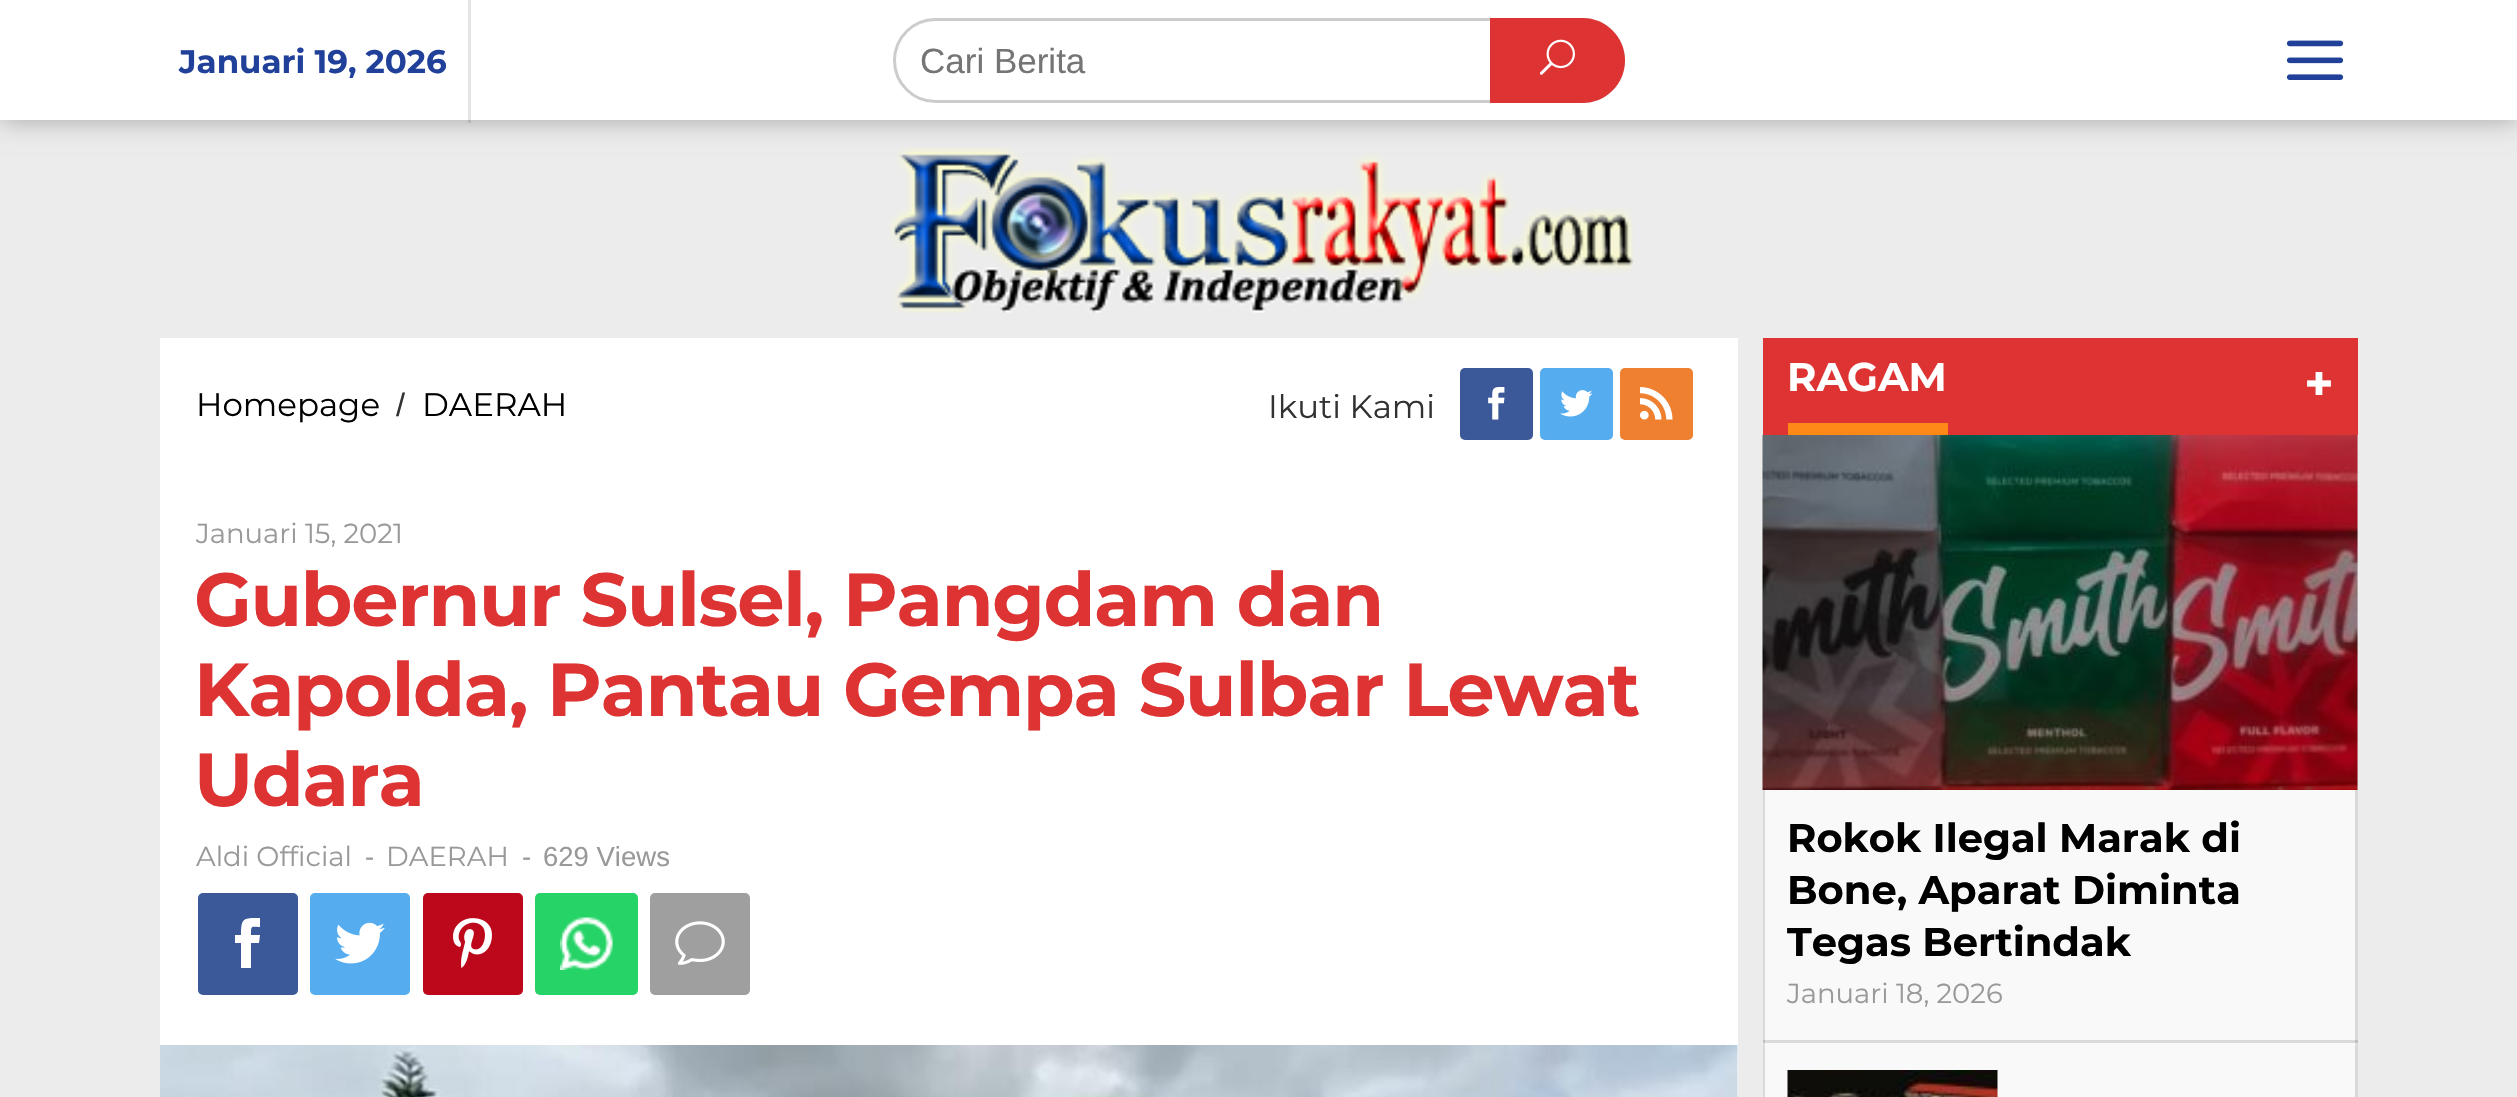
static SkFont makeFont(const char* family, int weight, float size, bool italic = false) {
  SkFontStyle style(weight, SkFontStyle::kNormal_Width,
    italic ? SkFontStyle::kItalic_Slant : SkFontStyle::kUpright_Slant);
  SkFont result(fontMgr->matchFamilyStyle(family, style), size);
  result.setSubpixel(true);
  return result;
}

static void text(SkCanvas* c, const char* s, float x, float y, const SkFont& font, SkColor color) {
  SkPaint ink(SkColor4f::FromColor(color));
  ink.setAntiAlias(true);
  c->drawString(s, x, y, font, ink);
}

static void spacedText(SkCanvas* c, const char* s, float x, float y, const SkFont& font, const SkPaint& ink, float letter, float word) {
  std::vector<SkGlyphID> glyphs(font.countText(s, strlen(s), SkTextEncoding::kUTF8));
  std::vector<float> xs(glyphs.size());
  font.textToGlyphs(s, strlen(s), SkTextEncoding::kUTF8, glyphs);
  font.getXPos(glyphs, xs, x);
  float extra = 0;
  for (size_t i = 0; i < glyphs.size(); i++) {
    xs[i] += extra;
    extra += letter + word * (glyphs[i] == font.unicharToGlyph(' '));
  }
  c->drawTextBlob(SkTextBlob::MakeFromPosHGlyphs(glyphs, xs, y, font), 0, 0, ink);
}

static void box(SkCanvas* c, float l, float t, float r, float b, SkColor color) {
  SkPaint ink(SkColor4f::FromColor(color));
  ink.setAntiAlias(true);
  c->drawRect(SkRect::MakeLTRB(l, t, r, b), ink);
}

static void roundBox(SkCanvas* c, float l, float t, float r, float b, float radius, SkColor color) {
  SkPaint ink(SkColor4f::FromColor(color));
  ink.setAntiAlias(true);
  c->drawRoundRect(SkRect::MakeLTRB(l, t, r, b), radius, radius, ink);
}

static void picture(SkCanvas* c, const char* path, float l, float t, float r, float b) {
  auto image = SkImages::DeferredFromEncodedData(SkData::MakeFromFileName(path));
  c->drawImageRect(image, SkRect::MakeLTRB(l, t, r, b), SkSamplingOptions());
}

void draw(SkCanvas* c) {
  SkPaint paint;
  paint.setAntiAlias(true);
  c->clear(0xffececec);
  paint.setColor(0x4d000000);
  paint.setMaskFilter(SkMaskFilter::MakeBlur(kNormal_SkBlurStyle, 12.5f));
  c->drawRect(SkRect::MakeLTRB(0, 0, 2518, 120), paint);
  paint.setMaskFilter(nullptr);
  box(c, 0, 0, 2517, 120, 0xffffffff);
  SkFont face1 = makeFont("Montserrat", 700, 32.5f);
  text(c, "Januari 19, 2026", 179, 73, face1, 0xff20409a);
  box(c, 468, 0, 471, 123, 0x1a000000);
  paint.setStyle(SkPaint::kStroke_Style);
  paint.setStrokeWidth(3);
  paint.setColor(0xffcccccc);
  c->drawRoundRect(SkRect::MakeLTRB(894.5f, 19.5f, 1623.5f, 101.5f), 41, 41, paint);
  SkFont face2 = makeFont("Liberation Sans", 400, 35);
  text(c, "Cari Berita", 920, 73, face2, 0xff757575);
  paint.setStyle(SkPaint::kFill_Style);
  paint.setColor(0xffdd3333);
  c->drawPath(SkPathBuilder().moveTo(1490, 18).lineTo(1582.5f, 18).cubicTo(1606, 18, 1625, 37, 1625, 60.5f).cubicTo(1625, 84, 1606, 103, 1582.5f, 103).lineTo(1490, 103).close().detach(), paint);
  picture(c, "img_01.png", 1539, 39, 1575, 75);
  picture(c, "img_02.png", 2286, 40, 2344, 80);
  picture(c, "img_03.png", 889, 147, 1633, 313);
  box(c, 160, 338, 1738, 1097, 0xffffffff);
  SkFont face3 = makeFont("Montserrat", 400, 32.5f);
  text(c, "Homepage", 196, 416, face3, 0xff000000);
  SkFont face4 = makeFont("Liberation Sans", 400, 32.5f);
  text(c, "/", 396, 416, face4, 0xff323233);
  text(c, "DAERAH", 422, 416, face3, 0xff000000);
  text(c, "Ikuti Kami", 1268, 418, face3, 0xff323233);
  roundBox(c, 1460, 368, 1533, 440, 5, 0xff3b5998);
  picture(c, "img_04.png", 1488, 387, 1505, 420);
  roundBox(c, 1540, 368, 1613, 440, 5, 0xff55acee);
  picture(c, "img_05.png", 1560, 390, 1593, 417);
  roundBox(c, 1620, 368, 1693, 440, 5, 0xffee802f);
  picture(c, "img_06.png", 1640, 387, 1673, 420);
  SkFont face5 = makeFont("Montserrat", 400, 27.5f);
  text(c, "Januari 15, 2021", 196, 543, face5, 0xff999999);
  SkFont face6 = makeFont("Montserrat", 700, 75);
  spacedText(c, "Gubernur Sulsel, Pangdam dan", 194, 626, face6, paint, -1.25f, 0);
  spacedText(c, "Kapolda, Pantau Gempa Sulbar Lewat", 194, 716, face6, paint, -1.25f, 0);
  spacedText(c, "Udara", 194, 806, face6, paint, -1.25f, 0);
  text(c, "Aldi Official", 196, 866, face5, 0xff999999);
  SkFont face7 = makeFont("Liberation Sans", 400, 27.5f);
  text(c, "-", 365, 866, face7, 0xff999999);
  text(c, "DAERAH", 386, 866, face5, 0xff999999);
  text(c, "-", 522, 866, face7, 0xff999999);
  text(c, "629 Views", 543, 866, face7, 0xff999999);
  roundBox(c, 198, 893, 298, 995, 5, 0xff3b5998);
  paint.setColor(0xffffffff);
  c->drawPath(SkPathBuilder().moveTo(241, 968).lineTo(241, 943).lineTo(235, 943).lineTo(235, 935).lineTo(241, 935).cubicTo(241, 917, 244, 918, 260, 918).lineTo(260, 927).cubicTo(251, 927, 251, 925, 251, 935).lineTo(260, 935).lineTo(259, 943).lineTo(251, 943).lineTo(251, 968).close().detach(), paint);
  roundBox(c, 310, 893, 410, 995, 5, 0xff55acee);
  picture(c, "img_07.png", 335, 922, 385, 964);
  roundBox(c, 423, 893, 523, 995, 5, 0xffbd081c);
  picture(c, "img_08.png", 453, 918, 492, 968);
  roundBox(c, 535, 893, 638, 995, 5, 0xff25d366);
  picture(c, "img_09.png", 560, 917, 613, 970);
  roundBox(c, 650, 893, 750, 995, 5, 0xff9f9f9f);
  picture(c, "img_10.png", 675, 921, 725, 965);
  picture(c, "img_11.png", 160, 1045, 1738, 1097);
  box(c, 1763, 338, 2358, 435, 0xffdd3333);
  box(c, 1788, 423, 1948, 435, 0xfffe8917);
  SkFont face8 = makeFont("Montserrat", 700, 40);
  text(c, "RAGAM", 1787, 391, face8, 0xffffffff);
  SkFont face9 = makeFont("Montserrat", 700, 50);
  text(c, "+", 2304, 401, face9, 0xffffffff);
  box(c, 1765, 790, 2355, 1097, 0xfff9f9f9);
  c->save();
  c->clipRect(SkRect::MakeLTRB(1763, 435, 2358, 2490));
  paint.setColor(0xffdadada);
  c->drawPath(SkPathBuilder(SkPathFillType::kEvenOdd).moveTo(1515, 188).lineTo(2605, 188).lineTo(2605, 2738).lineTo(1515, 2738).close().moveTo(1765, 435).lineTo(2355, 435).lineTo(2355, 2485).lineTo(1765, 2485).close().detach(), paint);
  c->restore();
  box(c, 1763, 1040, 2358, 1043, 0x1f000000);
  picture(c, "img_12.png", 1762, 435, 2358, 790);
  text(c, "Rokok Ilegal Marak di", 1787, 852, face8, 0xff000000);
  text(c, "Bone, Aparat Diminta", 1787, 904, face8, 0xff000000);
  text(c, "Tegas Bertindak", 1787, 956, face8, 0xff000000);
  text(c, "Januari 18, 2026", 1787, 1003, face5, 0xff999999);
  box(c, 1763, 1043, 2358, 1046, 0x1fffffff);
  picture(c, "img_13.png", 1787, 1070, 1998, 1097);
}
